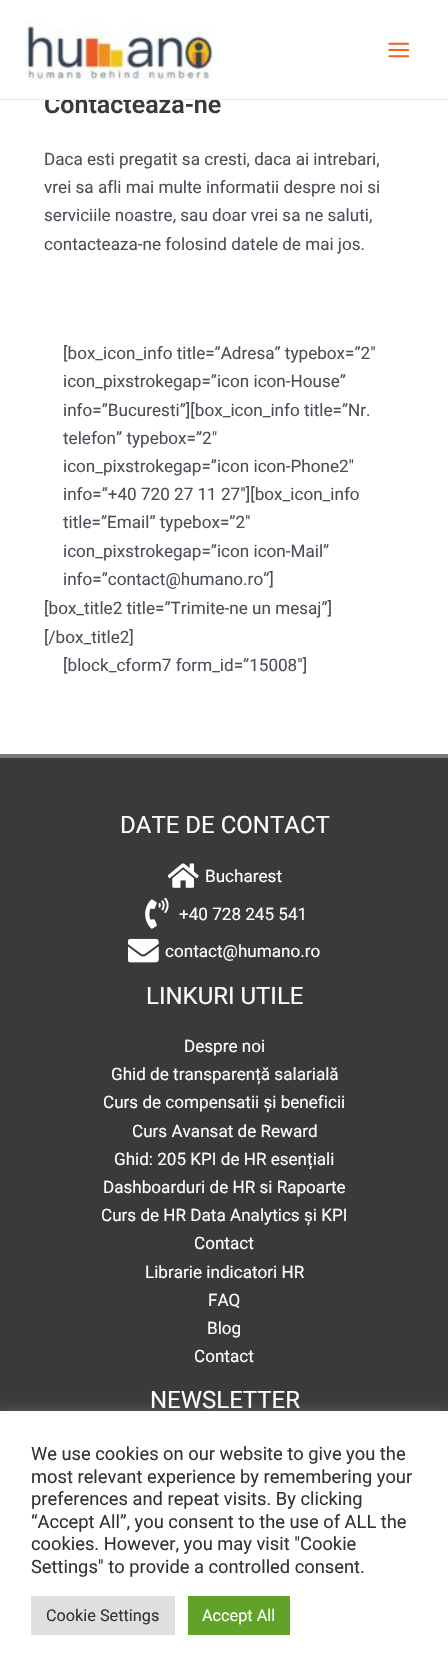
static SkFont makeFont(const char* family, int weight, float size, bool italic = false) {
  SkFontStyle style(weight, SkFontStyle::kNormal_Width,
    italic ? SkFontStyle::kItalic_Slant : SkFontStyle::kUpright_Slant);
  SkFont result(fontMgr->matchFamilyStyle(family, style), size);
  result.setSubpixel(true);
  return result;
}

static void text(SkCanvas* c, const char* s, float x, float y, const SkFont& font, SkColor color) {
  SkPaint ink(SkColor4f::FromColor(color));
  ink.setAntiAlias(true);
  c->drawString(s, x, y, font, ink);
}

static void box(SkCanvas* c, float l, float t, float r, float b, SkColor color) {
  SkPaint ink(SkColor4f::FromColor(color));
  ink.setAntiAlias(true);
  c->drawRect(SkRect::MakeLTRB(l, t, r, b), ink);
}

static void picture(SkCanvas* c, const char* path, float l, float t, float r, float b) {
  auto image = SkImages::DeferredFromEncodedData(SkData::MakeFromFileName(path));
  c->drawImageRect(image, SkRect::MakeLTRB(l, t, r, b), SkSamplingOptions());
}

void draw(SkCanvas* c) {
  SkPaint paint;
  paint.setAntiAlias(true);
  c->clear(0xffffffff);
  SkFont face1 = makeFont("Roboto", 600, 25);
  text(c, "Contacteaza-ne", 44, 113, face1, 0xff3a3a3a);
  box(c, 45, 95, 129, 99, 0xffffffff);
  box(c, 0, 99, 448, 100, 0xffeaeaea);
  picture(c, "img_01.png", 25, 20, 213, 80);
  picture(c, "img_02.png", 388, 42, 410, 58);
  SkFont face2 = makeFont("Roboto", 400, 17.1f);
  text(c, "Daca esti pregatit sa cresti, daca ai intrebari,", 44, 165, face2, 0xff4b4f58);
  text(c, "vrei sa afli mai multe informatii despre noi si", 44, 193, face2, 0xff4b4f58);
  text(c, "serviciile noastre, sau doar vrei sa ne saluti,", 44, 221, face2, 0xff4b4f58);
  text(c, "contacteaza-ne folosind datele de mai jos.", 44, 250, face2, 0xff4b4f58);
  text(c, "[box_icon_info title=”Adresa” typebox=”2″", 63, 359, face2, 0xff4b4f58);
  text(c, "icon_pixstrokegap=”icon icon-House”", 63, 387, face2, 0xff4b4f58);
  text(c, "info=”Bucuresti”][box_icon_info title=”Nr.", 63, 416, face2, 0xff4b4f58);
  text(c, "telefon” typebox=”2″", 63, 444, face2, 0xff4b4f58);
  text(c, "icon_pixstrokegap=”icon icon-Phone2″", 63, 472, face2, 0xff4b4f58);
  text(c, "info=”+40 720 27 11 27″][box_icon_info", 63, 500, face2, 0xff4b4f58);
  text(c, "title=”Email” typebox=”2″", 63, 528, face2, 0xff4b4f58);
  text(c, "icon_pixstrokegap=”icon icon-Mail”", 63, 557, face2, 0xff4b4f58);
  text(c, "info=”contact@humano.ro”]", 63, 585, face2, 0xff4b4f58);
  text(c, "[box_title2 title=”Trimite-ne un mesaj”]", 44, 614, face2, 0xff4b4f58);
  text(c, "[/box_title2]", 44, 643, face2, 0xff4b4f58);
  text(c, "[block_cform7 form_id=”15008″]", 63, 671, face2, 0xff4b4f58);
  box(c, 0, 758, 448, 1411, 0xff3a3a3a);
  box(c, 0, 754, 448, 758, 0xff7a7a7a);
  SkFont face3 = makeFont("Roboto", 400, 24);
  text(c, "DATE DE CONTACT", 120, 833, face3, 0xffffffff);
  picture(c, "img_03.png", 168, 863, 199, 888);
  text(c, "Bucharest", 205, 882, face2, 0xffffffff);
  picture(c, "img_04.png", 145, 898, 169, 929);
  text(c, "+40 728 245 541", 179, 920, face2, 0xffffffff);
  picture(c, "img_05.png", 128, 938, 159, 963);
  text(c, "contact@humano.ro", 165, 957, face2, 0xffffffff);
  text(c, "LINKURI UTILE", 146, 1004, face3, 0xffffffff);
  text(c, "Despre noi", 184, 1052, face2, 0xffffffff);
  text(c, "Ghid de transparență salarială", 111, 1080, face2, 0xffffffff);
  text(c, "Curs de compensatii și beneficii", 103, 1108, face2, 0xffffffff);
  text(c, "Curs Avansat de Reward", 132, 1137, face2, 0xffffffff);
  text(c, "Ghid: 205 KPI de HR esențiali", 114, 1165, face2, 0xffffffff);
  text(c, "Dashboarduri de HR si Rapoarte", 103, 1193, face2, 0xffffffff);
  text(c, "Curs de HR Data Analytics și KPI", 101, 1221, face2, 0xffffffff);
  text(c, "Contact", 194, 1249, face2, 0xffffffff);
  text(c, "Librarie indicatori HR", 145, 1278, face2, 0xffffffff);
  text(c, "FAQ", 208, 1306, face2, 0xffffffff);
  text(c, "Blog", 207, 1334, face2, 0xffffffff);
  text(c, "Contact", 194, 1362, face2, 0xffffffff);
  text(c, "NEWSLETTER", 150, 1408, face3, 0xffffffff);
  paint.setColor(0x4dacabab);
  paint.setMaskFilter(SkMaskFilter::MakeBlur(kNormal_SkBlurStyle, 6));
  c->drawRect(SkRect::MakeLTRB(0, 1410, 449, 1671), paint);
  paint.setMaskFilter(nullptr);
  box(c, 0, 1411, 448, 1672, 0xffffffff);
  SkFont face4 = makeFont("Roboto", 400, 18.3f);
  text(c, "We use cookies on our website to give you the", 31, 1460, face4, 0xff333333);
  text(c, "most relevant experience by remembering your", 31, 1483, face4, 0xff333333);
  text(c, "preferences and repeat visits. By clicking", 31, 1505, face4, 0xff333333);
  text(c, "“Accept All”, you consent to the use of ALL the", 31, 1528, face4, 0xff333333);
  text(c, "cookies. However, you may visit \"Cookie", 31, 1550, face4, 0xff333333);
  text(c, "Settings\" to provide a controlled consent.", 31, 1573, face4, 0xff333333);
  box(c, 31, 1596, 175, 1635, 0xffdedfe0);
  SkFont face5 = makeFont("Roboto", 400, 16.25f);
  text(c, "Cookie Settings", 46, 1621, face5, 0xff333333);
  box(c, 188, 1596, 290, 1635, 0xff61a229);
  text(c, "Accept All", 202, 1621, face5, 0xffffffff);
}
